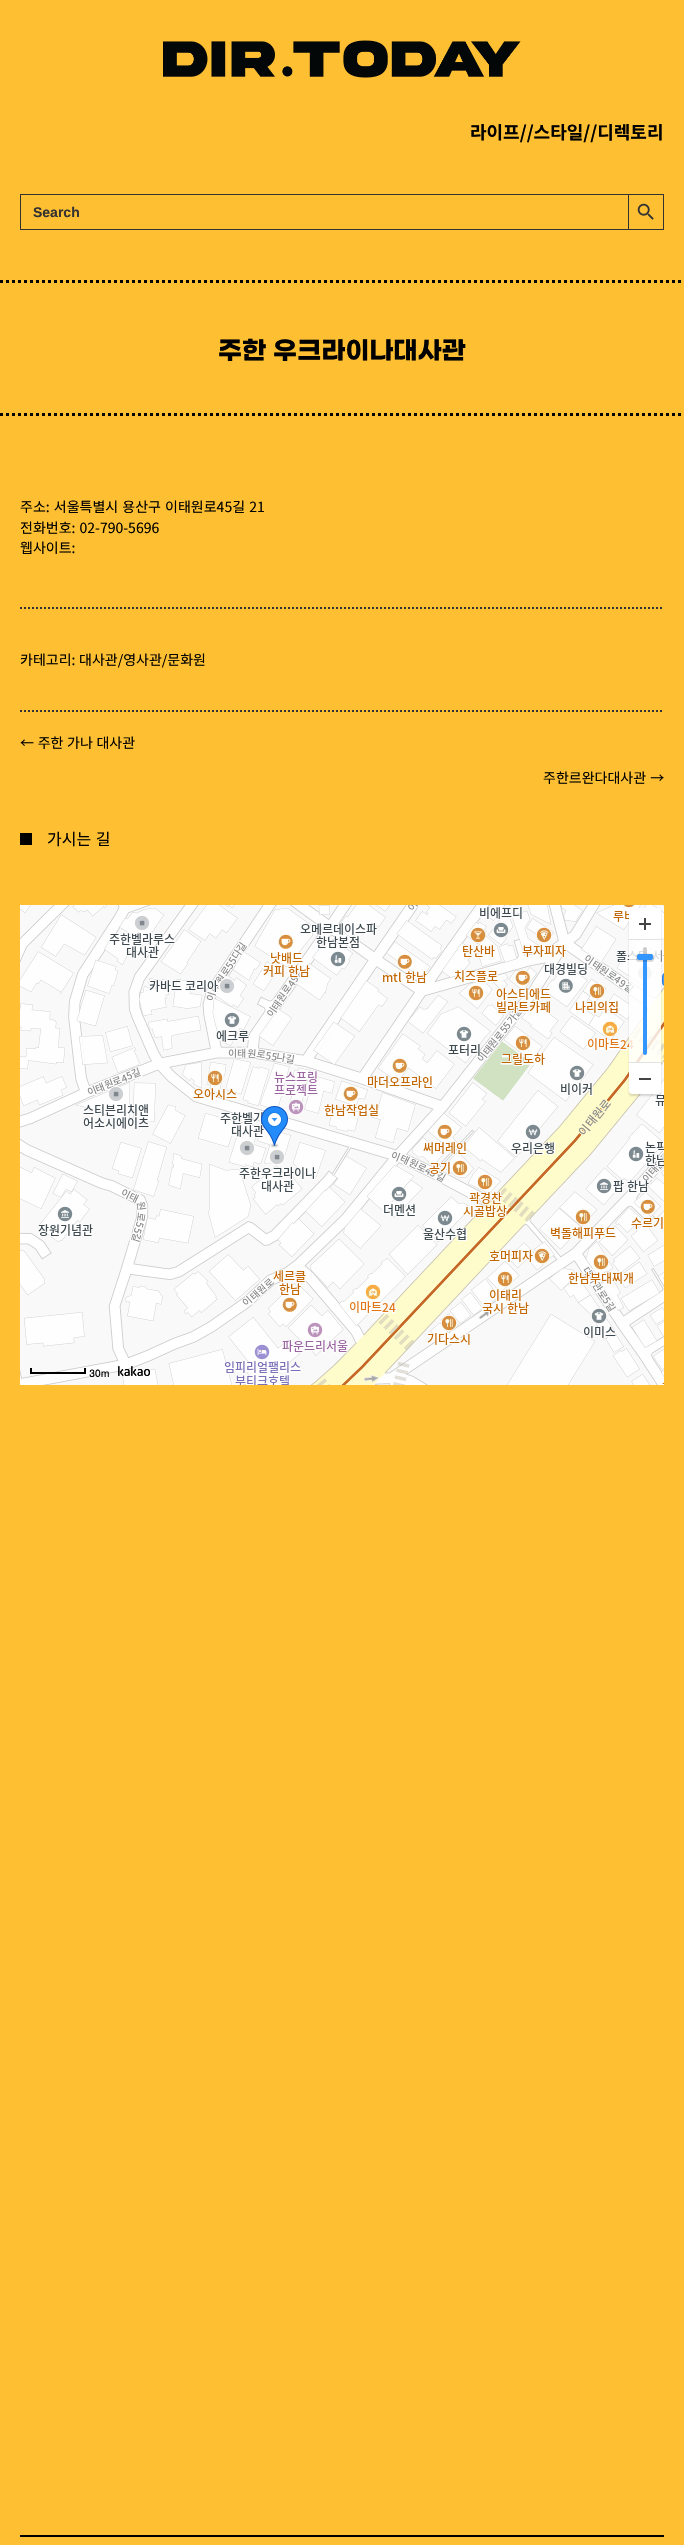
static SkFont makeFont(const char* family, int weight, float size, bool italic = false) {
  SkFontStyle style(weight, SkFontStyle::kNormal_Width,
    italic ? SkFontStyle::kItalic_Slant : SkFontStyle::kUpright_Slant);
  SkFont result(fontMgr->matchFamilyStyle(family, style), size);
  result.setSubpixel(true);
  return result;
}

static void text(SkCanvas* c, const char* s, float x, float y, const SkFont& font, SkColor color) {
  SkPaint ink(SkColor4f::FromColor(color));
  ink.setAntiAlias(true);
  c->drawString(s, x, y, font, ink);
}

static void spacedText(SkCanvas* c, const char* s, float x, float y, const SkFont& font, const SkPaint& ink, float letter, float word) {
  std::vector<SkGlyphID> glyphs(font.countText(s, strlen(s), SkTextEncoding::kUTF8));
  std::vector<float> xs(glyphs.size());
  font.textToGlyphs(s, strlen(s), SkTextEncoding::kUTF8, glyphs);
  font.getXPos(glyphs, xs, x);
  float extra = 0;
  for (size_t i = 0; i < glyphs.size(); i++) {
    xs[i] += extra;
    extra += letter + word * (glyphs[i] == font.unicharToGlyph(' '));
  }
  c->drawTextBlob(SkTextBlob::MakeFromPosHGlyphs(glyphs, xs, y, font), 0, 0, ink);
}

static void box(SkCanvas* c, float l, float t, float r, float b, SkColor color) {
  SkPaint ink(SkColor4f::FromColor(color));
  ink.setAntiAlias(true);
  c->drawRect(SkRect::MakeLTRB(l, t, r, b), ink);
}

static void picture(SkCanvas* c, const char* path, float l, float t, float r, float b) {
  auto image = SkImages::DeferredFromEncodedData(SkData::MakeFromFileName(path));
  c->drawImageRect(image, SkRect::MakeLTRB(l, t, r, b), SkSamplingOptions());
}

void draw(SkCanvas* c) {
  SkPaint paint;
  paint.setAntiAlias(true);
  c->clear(0xfffebf32);
  picture(c, "img_01.png", 163, 40, 521, 78);
  SkFont face1 = makeFont("Noto Sans KR", 700, 18);
  text(c, "라이프//스타일//디렉토리", 470, 139, face1, 0xff000000);
  box(c, 20, 194, 628, 195, 0xff333333);
  box(c, 20, 229, 628, 230, 0xff333333);
  box(c, 20, 194, 21, 230, 0xff333333);
  SkFont face2 = makeFont("Liberation Sans", 700, 14);
  text(c, "Search", 33, 217, face2, 0xff333333);
  paint.setStyle(SkPaint::kStroke_Style);
  paint.setStrokeWidth(1);
  paint.setColor(0xff333333);
  c->drawRect(SkRect::MakeLTRB(628.5f, 194.5f, 663.5f, 229.5f), paint);
  picture(c, "img_02.png", 637, 203, 654, 220);
  paint.setStrokeWidth(3);
  paint.setColor(0xff000000);
  paint.setPathEffect(SkDashPathEffect::Make({{3, 3}}, 0));
  c->drawPath(SkPathBuilder().moveTo(0, 281.5f).lineTo(684, 281.5f).detach(), paint);
  paint.setPathEffect(nullptr);
  paint.setPathEffect(SkDashPathEffect::Make({{3, 3}}, 0));
  c->drawPath(SkPathBuilder().moveTo(0, 414.5f).lineTo(684, 414.5f).detach(), paint);
  paint.setPathEffect(nullptr);
  SkFont face3 = makeFont("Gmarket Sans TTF", 700, 25);
  text(c, "주한 우크라이나대사관", 218, 358, face3, 0xff000000);
  SkFont face4 = makeFont("Noto Sans KR", 400, 14);
  paint.setStyle(SkPaint::kFill_Style);
  spacedText(c, "주소: 서울특별시 용산구 이태원로45길 21", 20, 512, face4, paint, 0, 1);
  spacedText(c, "전화번호: 02-790-5696", 20, 533, face4, paint, 0, 1);
  text(c, "웹사이트:", 20, 553, face4, 0xff000000);
  paint.setStyle(SkPaint::kStroke_Style);
  paint.setStrokeWidth(2);
  paint.setColor(0xff333333);
  paint.setPathEffect(SkDashPathEffect::Make({{2, 2}}, 0));
  c->drawPath(SkPathBuilder().moveTo(20, 608).lineTo(664, 608).detach(), paint);
  paint.setPathEffect(nullptr);
  text(c, "카테고리:", 20, 665, face4, 0xff000000);
  text(c, "대사관/영사관/문화원", 79, 665, face4, 0xff000000);
  paint.setPathEffect(SkDashPathEffect::Make({{2, 2}}, 0));
  c->drawPath(SkPathBuilder().moveTo(20, 711).lineTo(664, 711).detach(), paint);
  paint.setPathEffect(nullptr);
  paint.setStyle(SkPaint::kFill_Style);
  paint.setColor(0xff000000);
  spacedText(c, "← 주한 가나 대사관", 20, 748, face4, paint, 0, 0.5f);
  spacedText(c, "주한르완다대사관 →", 543, 783, face4, paint, 0, 1);
  box(c, 20, 833, 32, 845, 0xff000000);
  SkFont face5 = makeFont("Noto Sans KR", 400, 16);
  spacedText(c, "가시는 길", 47, 845, face5, paint, 0, 1);
  picture(c, "img_03.png", 20, 905, 95, 1122);
  picture(c, "img_04.png", 95, 905, 351, 1122);
  picture(c, "img_05.png", 351, 905, 607, 1122);
  picture(c, "img_06.png", 607, 905, 664, 1122);
  picture(c, "img_07.png", 20, 1122, 95, 1378);
  picture(c, "img_08.png", 95, 1122, 351, 1378);
  picture(c, "img_09.png", 351, 1122, 607, 1378);
  picture(c, "img_10.png", 607, 1122, 664, 1378);
  picture(c, "img_11.png", 20, 1378, 95, 1385);
  picture(c, "img_12.png", 95, 1378, 351, 1385);
  picture(c, "img_13.png", 351, 1378, 607, 1385);
  picture(c, "img_14.png", 607, 1378, 664, 1385);
  picture(c, "img_15.png", 261, 1106, 288, 1148);
  c->save();
  c->clipPath(SkPathBuilder(SkPathFillType::kEvenOdd).moveTo(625, 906).lineTo(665, 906).lineTo(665, 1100).lineTo(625, 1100).close().moveTo(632, 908).lineTo(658, 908).cubicTo(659.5f, 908, 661, 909.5f, 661, 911).lineTo(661, 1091).cubicTo(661, 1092.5f, 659.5f, 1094, 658, 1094).lineTo(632, 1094).cubicTo(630.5f, 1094, 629, 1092.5f, 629, 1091).lineTo(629, 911).cubicTo(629, 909.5f, 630.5f, 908, 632, 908).close().detach(), true);
  paint.setColor(0x26000000);
  paint.setMaskFilter(SkMaskFilter::MakeBlur(kNormal_SkBlurStyle, 1));
  c->drawRoundRect(SkRect::MakeLTRB(629, 910, 661, 1096), 3, 3, paint);
  paint.setMaskFilter(nullptr);
  c->restore();
  paint.setColor(0xffffffff);
  c->drawPath(SkPathBuilder().moveTo(632, 908).lineTo(658, 908).cubicTo(659.5f, 908, 661, 909.5f, 661, 911).lineTo(661, 940).lineTo(629, 940).lineTo(629, 911).cubicTo(629, 909.5f, 630.5f, 908, 632, 908).close().detach(), paint);
  picture(c, "img_16.png", 639, 918, 651, 930);
  box(c, 629, 939, 661, 940, 0xffe2e2e2);
  box(c, 629, 940, 661, 1062, 0xccffffff);
  box(c, 643, 960, 647, 1053, 0xff3396ff);
  picture(c, "img_17.png", 643, 947, 647, 949);
  picture(c, "img_18.png", 643, 1053, 647, 1055);
  box(c, 643, 949, 647, 957, 0xffcccccc);
  picture(c, "img_19.png", 636, 953, 654, 962);
  c->drawPath(SkPathBuilder().moveTo(629, 1062).lineTo(661, 1062).lineTo(661, 1091).cubicTo(661, 1092.5f, 659.5f, 1094, 658, 1094).lineTo(632, 1094).cubicTo(630.5f, 1094, 629, 1092.5f, 629, 1091).close().detach(), paint);
  box(c, 639, 1078, 651, 1080, 0xff444444);
  box(c, 629, 1062, 661, 1063, 0xffe2e2e2);
  box(c, 84, 1368, 86, 1374, 0xff000000);
  box(c, 30, 1372, 86, 1374, 0xff000000);
  box(c, 30, 1368, 32, 1374, 0xff000000);
  SkFont face6 = makeFont("Dotum", 700, 10);
  text(c, "30m", 89, 1377, face6, 0xff000000);
  picture(c, "img_20.png", 118, 1366, 150, 1376);
  box(c, 20, 2535, 664, 2537, 0xff000000);
}
